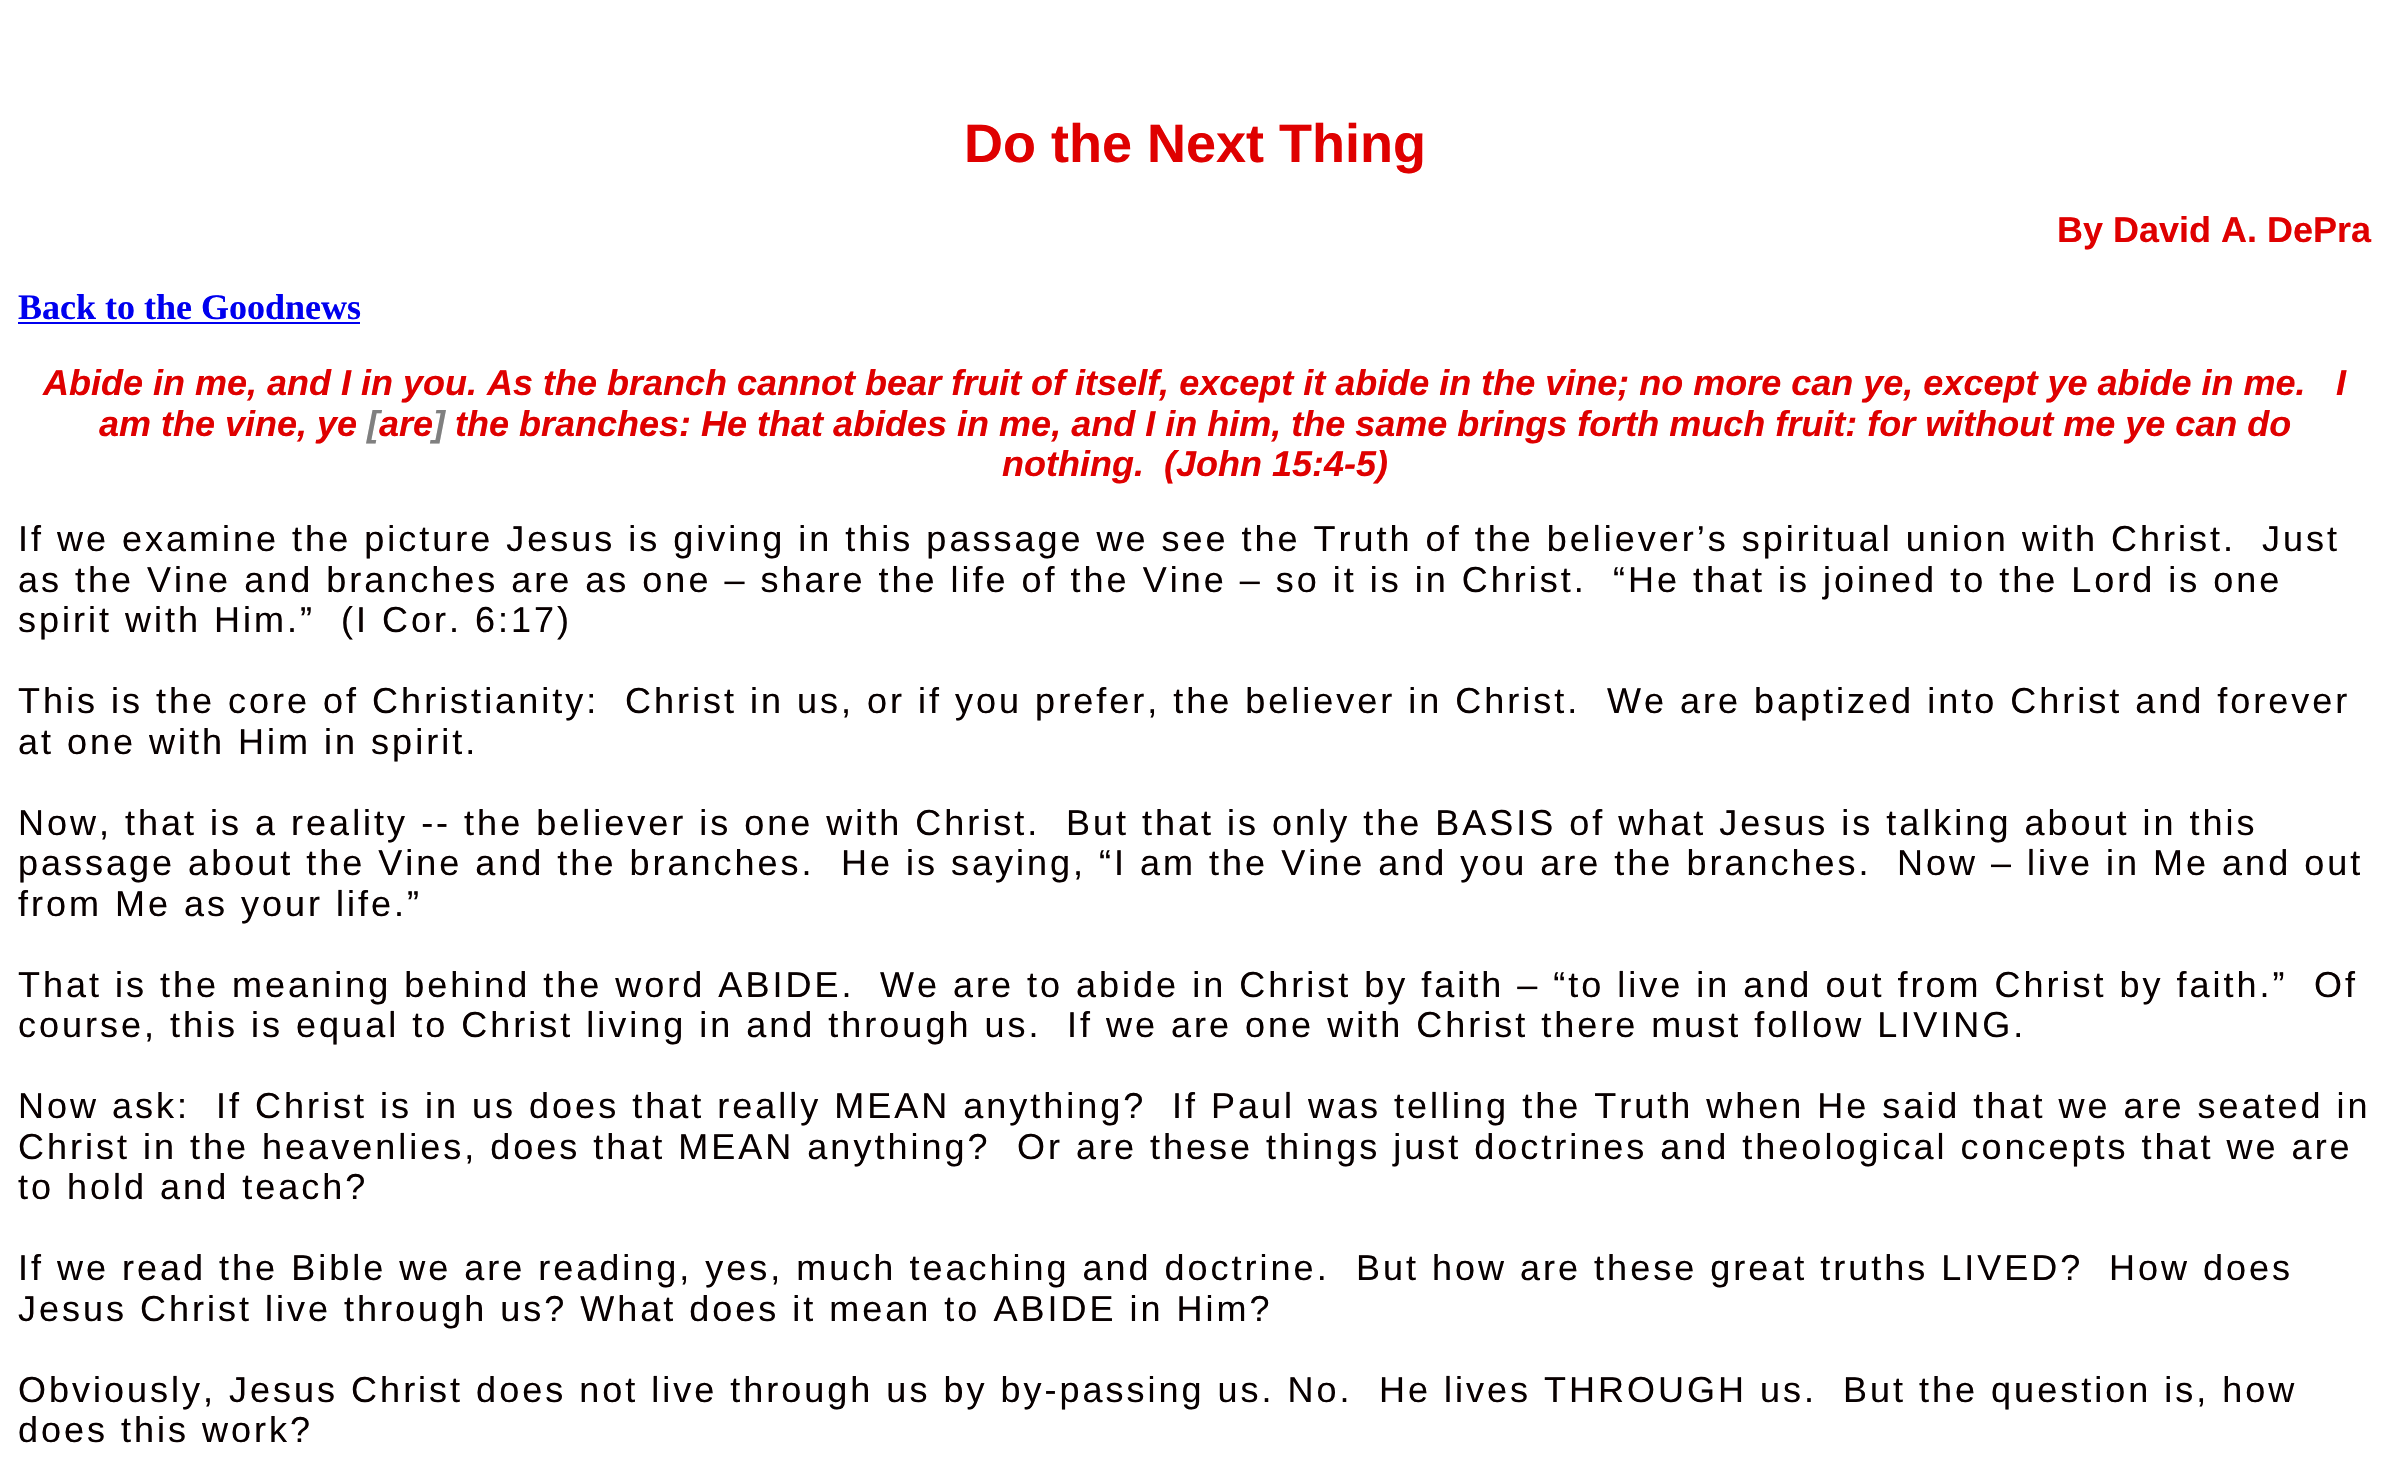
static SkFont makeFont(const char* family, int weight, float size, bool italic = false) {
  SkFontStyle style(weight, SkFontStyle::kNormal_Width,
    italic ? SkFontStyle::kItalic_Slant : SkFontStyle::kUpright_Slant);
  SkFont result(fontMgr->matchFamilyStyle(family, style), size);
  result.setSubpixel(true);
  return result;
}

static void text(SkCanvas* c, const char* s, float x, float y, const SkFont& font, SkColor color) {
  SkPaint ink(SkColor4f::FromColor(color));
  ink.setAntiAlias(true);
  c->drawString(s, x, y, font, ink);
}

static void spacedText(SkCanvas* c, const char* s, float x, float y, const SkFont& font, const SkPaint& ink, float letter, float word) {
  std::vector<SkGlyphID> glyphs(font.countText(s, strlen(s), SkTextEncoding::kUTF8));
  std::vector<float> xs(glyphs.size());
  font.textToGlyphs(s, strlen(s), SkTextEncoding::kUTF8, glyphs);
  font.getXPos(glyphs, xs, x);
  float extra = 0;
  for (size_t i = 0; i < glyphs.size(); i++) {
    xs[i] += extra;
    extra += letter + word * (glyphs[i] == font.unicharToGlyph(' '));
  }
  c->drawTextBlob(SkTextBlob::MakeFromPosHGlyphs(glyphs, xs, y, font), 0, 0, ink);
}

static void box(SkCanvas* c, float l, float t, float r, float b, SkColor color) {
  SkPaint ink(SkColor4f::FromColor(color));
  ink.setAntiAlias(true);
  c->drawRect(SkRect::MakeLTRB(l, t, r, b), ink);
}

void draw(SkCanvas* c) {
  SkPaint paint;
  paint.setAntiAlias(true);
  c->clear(0xffffffff);
  SkFont face1 = makeFont("Liberation Sans", 700, 54);
  text(c, "Do the Next Thing", 964, 162, face1, 0xffdf0000);
  SkFont face2 = makeFont("Liberation Sans", 700, 36);
  text(c, "By David A. DePra", 2057, 242, face2, 0xffdf0000);
  SkFont face3 = makeFont("Liberation Serif", 700, 36);
  text(c, "Back to the Goodnews", 18, 319, face3, 0xff0000ee);
  box(c, 18, 322, 360, 324, 0xff0000ee);
  SkFont face4 = makeFont("Liberation Sans", 700, 36, true);
  text(c, "Abide in me, and I in you. As the branch cannot bear fruit of itself, except it abide in the vine; no more can ye, except ye abide in me.", 43, 395, face4, 0xffdf0000);
  text(c, "I", 2336, 395, face4, 0xffdf0000);
  text(c, "am the vine, ye", 99, 436, face4, 0xffdf0000);
  text(c, "[", 367, 436, face4, 0xff808080);
  text(c, "are", 379, 436, face4, 0xffdf0000);
  text(c, "]", 433, 436, face4, 0xff808080);
  text(c, "the branches: He that abides in me, and I in him, the same brings forth much fruit: for without me ye can do", 455, 436, face4, 0xffdf0000);
  text(c, "nothing.", 1002, 476, face4, 0xffdf0000);
  text(c, "(John 15:4-5)", 1164, 476, face4, 0xffdf0000);
  SkFont face5 = makeFont("Liberation Sans", 400, 36);
  paint.setColor(0xff080000);
  spacedText(c, "If we examine the picture Jesus is giving in this passage we see the Truth of the believer’s spiritual union with Christ.", 18, 551, face5, paint, 3, 0);
  spacedText(c, "Just", 2262, 551, face5, paint, 3, 0);
  spacedText(c, "as the Vine and branches are as one – share the life of the Vine – so it is in Christ.", 18, 592, face5, paint, 3, 0);
  spacedText(c, "“He that is joined to the Lord is one", 1613, 592, face5, paint, 3, 0);
  spacedText(c, "spirit with Him.”", 18, 632, face5, paint, 3, 0);
  spacedText(c, "(I Cor. 6:17)", 341, 632, face5, paint, 3, 0);
  spacedText(c, "This is the core of Christianity:", 18, 713, face5, paint, 3, 0);
  spacedText(c, "Christ in us, or if you prefer, the believer in Christ.", 625, 713, face5, paint, 3, 0);
  spacedText(c, "We are baptized into Christ and forever", 1607, 713, face5, paint, 3, 0);
  spacedText(c, "at one with Him in spirit.", 18, 754, face5, paint, 3, 0);
  spacedText(c, "Now, that is a reality -- the believer is one with Christ.", 18, 835, face5, paint, 3, 0);
  spacedText(c, "But that is only the BASIS of what Jesus is talking about in this", 1066, 835, face5, paint, 3, 0);
  spacedText(c, "passage about the Vine and the branches.", 18, 875, face5, paint, 3, 0);
  spacedText(c, "He is saying, “I am the Vine and you are the branches.", 841, 875, face5, paint, 3, 0);
  spacedText(c, "Now – live in Me and out", 1897, 875, face5, paint, 3, 0);
  spacedText(c, "from Me as your life.”", 18, 916, face5, paint, 3, 0);
  spacedText(c, "That is the meaning behind the word ABIDE.", 18, 997, face5, paint, 3, 0);
  spacedText(c, "We are to abide in Christ by faith – “to live in and out from Christ by faith.”", 880, 997, face5, paint, 3, 0);
  spacedText(c, "Of", 2314, 997, face5, paint, 3, 0);
  spacedText(c, "course, this is equal to Christ living in and through us.", 18, 1037, face5, paint, 3, 0);
  spacedText(c, "If we are one with Christ there must follow LIVING.", 1067, 1037, face5, paint, 3, 0);
  spacedText(c, "Now ask:", 18, 1118, face5, paint, 3, 0);
  spacedText(c, "If Christ is in us does that really MEAN anything?", 216, 1118, face5, paint, 3, 0);
  spacedText(c, "If Paul was telling the Truth when He said that we are seated in", 1172, 1118, face5, paint, 3, 0);
  spacedText(c, "Christ in the heavenlies, does that MEAN anything?", 18, 1159, face5, paint, 3, 0);
  spacedText(c, "Or are these things just doctrines and theological concepts that we are", 1017, 1159, face5, paint, 3, 0);
  spacedText(c, "to hold and teach?", 18, 1199, face5, paint, 3, 0);
  spacedText(c, "If we read the Bible we are reading, yes, much teaching and doctrine.", 18, 1280, face5, paint, 3, 0);
  spacedText(c, "But how are these great truths LIVED?", 1356, 1280, face5, paint, 3, 0);
  spacedText(c, "How does", 2109, 1280, face5, paint, 3, 0);
  spacedText(c, "Jesus Christ live through us? What does it mean to ABIDE in Him?", 18, 1321, face5, paint, 3, 0);
  spacedText(c, "Obviously, Jesus Christ does not live through us by by-passing us. No.", 18, 1402, face5, paint, 3, 0);
  spacedText(c, "He lives THROUGH us.", 1379, 1402, face5, paint, 3, 0);
  spacedText(c, "But the question is, how", 1843, 1402, face5, paint, 3, 0);
  spacedText(c, "does this work?", 18, 1442, face5, paint, 3, 0);
}
